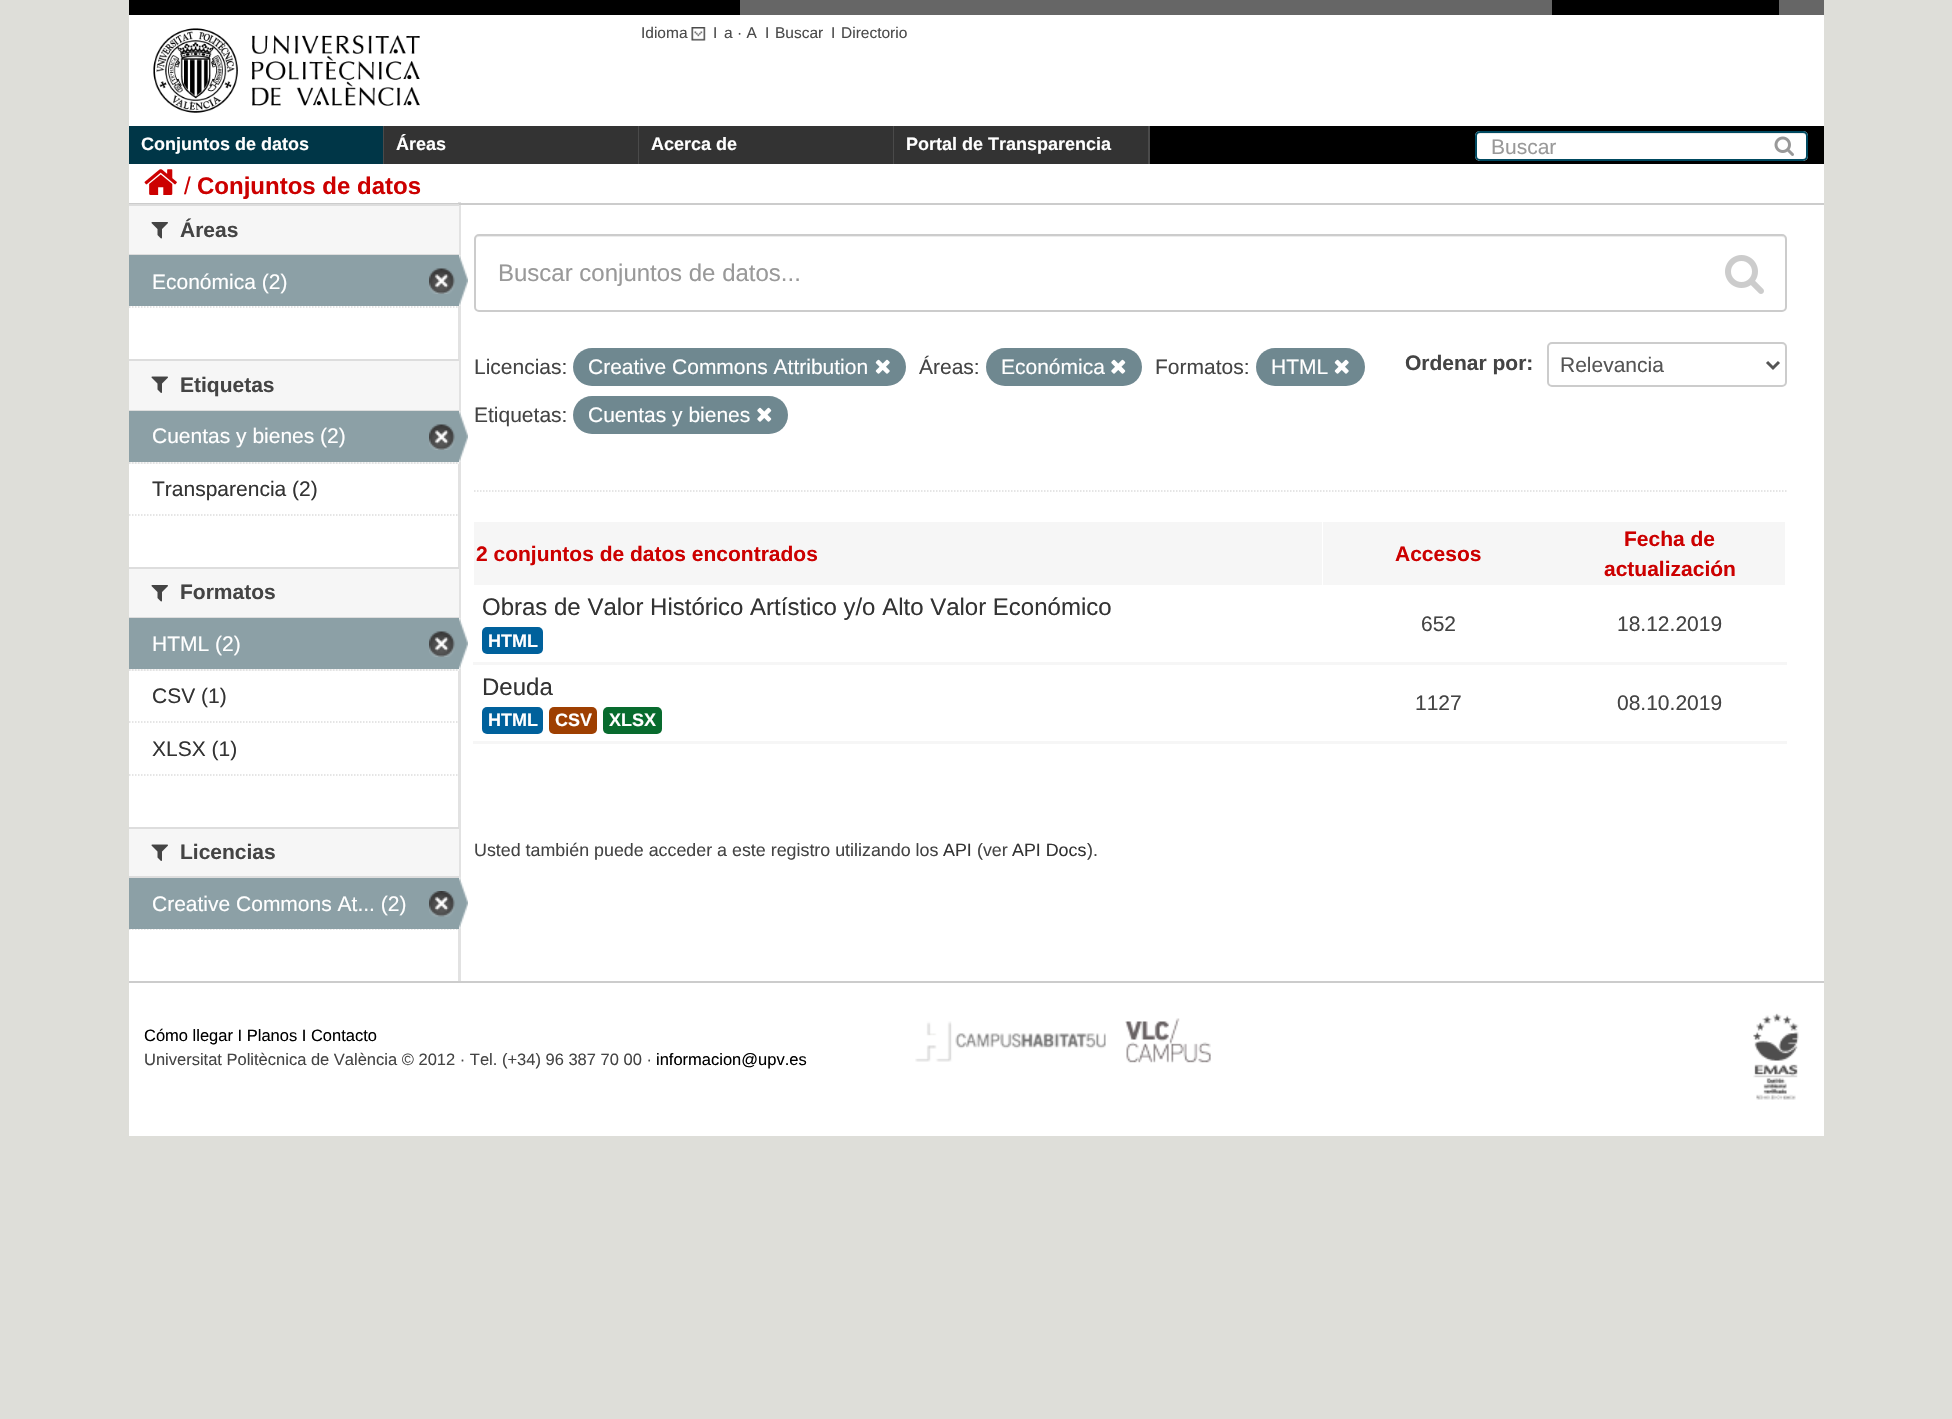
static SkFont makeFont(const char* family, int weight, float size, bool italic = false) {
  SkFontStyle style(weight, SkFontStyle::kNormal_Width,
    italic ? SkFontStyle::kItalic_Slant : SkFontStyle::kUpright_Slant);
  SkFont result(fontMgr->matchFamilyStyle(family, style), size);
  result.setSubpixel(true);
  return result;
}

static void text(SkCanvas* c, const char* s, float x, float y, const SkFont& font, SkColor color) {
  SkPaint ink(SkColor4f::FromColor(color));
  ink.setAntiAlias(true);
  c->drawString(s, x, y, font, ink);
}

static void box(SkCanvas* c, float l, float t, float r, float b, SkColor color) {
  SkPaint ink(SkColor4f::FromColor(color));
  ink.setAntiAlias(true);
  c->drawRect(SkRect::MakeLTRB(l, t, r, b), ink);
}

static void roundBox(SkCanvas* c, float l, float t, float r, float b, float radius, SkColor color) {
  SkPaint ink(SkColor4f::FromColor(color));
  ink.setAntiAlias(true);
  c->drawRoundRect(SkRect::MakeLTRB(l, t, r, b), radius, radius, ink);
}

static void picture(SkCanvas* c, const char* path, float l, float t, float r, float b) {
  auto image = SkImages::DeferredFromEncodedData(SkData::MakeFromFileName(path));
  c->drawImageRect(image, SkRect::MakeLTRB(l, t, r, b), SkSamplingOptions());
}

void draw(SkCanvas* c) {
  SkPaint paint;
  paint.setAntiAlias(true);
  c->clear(0xffdeded9);
  box(c, 740, 0, 1824, 15, 0xff666666);
  box(c, 129, 0, 740, 15, 0xff000000);
  box(c, 1552, 0, 1779, 15, 0xff000000);
  box(c, 129, 15, 1824, 126, 0xffffffff);
  picture(c, "img_01.png", 153, 28, 420, 113);
  SkFont face1 = makeFont("Liberation Sans", 400, 15.5f);
  text(c, "Idioma", 641, 38, face1, 0xff4b4b4b);
  picture(c, "img_02.png", 691, 27, 706, 41);
  text(c, "I", 713, 38, face1, 0xff4b4b4b);
  text(c, "a · A", 724, 38, face1, 0xff4b4b4b);
  text(c, "I", 765, 38, face1, 0xff4b4b4b);
  text(c, "Buscar", 775, 38, face1, 0xff4b4b4b);
  text(c, "I", 831, 38, face1, 0xff4b4b4b);
  text(c, "Directorio", 841, 38, face1, 0xff4b4b4b);
  box(c, 1150, 126, 1824, 164, 0xff000000);
  box(c, 129, 126, 383, 164, 0xff003647);
  box(c, 383, 126, 384, 164, 0xff4a4a4a);
  SkFont face2 = makeFont("Liberation Sans", 700, 18);
  text(c, "Conjuntos de datos", 141, 150, face2, 0xffffffff);
  box(c, 384, 126, 638, 164, 0xff333333);
  box(c, 638, 126, 639, 164, 0xff4a4a4a);
  text(c, "Áreas", 396, 150, face2, 0xffffffff);
  box(c, 639, 126, 893, 164, 0xff333333);
  box(c, 893, 126, 894, 164, 0xff4a4a4a);
  text(c, "Acerca de", 651, 150, face2, 0xffffffff);
  box(c, 894, 126, 1148, 164, 0xff333333);
  box(c, 1148, 126, 1150, 164, 0xff4a4a4a);
  text(c, "Portal de Transparencia", 906, 150, face2, 0xffffffff);
  roundBox(c, 1475, 131, 1808, 161, 5, 0xffffffff);
  paint.setColor(0xffececec);
  c->drawPath(SkPathBuilder().moveTo(1479, 134).lineTo(1803, 134).cubicTo(1805, 134, 1806, 135, 1806, 136).cubicTo(1806, 134, 1805, 132, 1803, 132).lineTo(1479, 132).cubicTo(1477, 132, 1476, 134, 1476, 136).cubicTo(1476, 135, 1477, 134, 1479, 134).close().detach(), paint);
  paint.setStyle(SkPaint::kStroke_Style);
  paint.setStrokeWidth(2);
  paint.setColor(0xff004a61);
  c->drawRoundRect(SkRect::MakeLTRB(1476, 132, 1807, 160), 4, 4, paint);
  SkFont face3 = makeFont("Liberation Sans", 400, 21);
  text(c, "Buscar", 1491, 154, face3, 0xff999999);
  picture(c, "img_03.png", 1774, 136, 1794, 156);
  box(c, 129, 164, 1824, 981, 0xffffffff);
  picture(c, "img_04.png", 144, 169, 177, 195);
  SkFont face4 = makeFont("Liberation Sans", 400, 24);
  text(c, "/", 184, 194, face4, 0xffcc0000);
  SkFont face5 = makeFont("Liberation Sans", 700, 24);
  text(c, "Conjuntos de datos", 197, 194, face5, 0xffcc0000);
  box(c, 458, 202, 461, 983, 0xffe2e2e2);
  box(c, 129, 203, 1824, 205, 0xffcccccc);
  box(c, 129, 981, 1824, 983, 0xffcccccc);
  box(c, 129, 206, 459, 254, 0xfff6f6f6);
  box(c, 129, 204, 459, 206, 0xffdddddd);
  box(c, 129, 254, 459, 255, 0xffdddddd);
  picture(c, "img_05.png", 151, 222, 168, 239);
  SkFont face6 = makeFont("Liberation Sans", 700, 21);
  text(c, "Áreas", 180, 237, face6, 0xff444444);
  box(c, 129, 255, 459, 306, 0xff8ca0a6);
  text(c, "Económica (2)", 152, 289, face3, 0xffffffff);
  picture(c, "img_06.png", 429, 268, 455, 294);
  picture(c, "img_07.png", 459, 255, 468, 306);
  paint.setStrokeWidth(1.5f);
  paint.setColor(0xffdddddd);
  paint.setPathEffect(SkDashPathEffect::Make({{1.5f, 1.5f}}, 0));
  c->drawPath(SkPathBuilder().moveTo(129, 307).lineTo(459, 307).detach(), paint);
  paint.setPathEffect(nullptr);
  box(c, 129, 361, 459, 410, 0xfff6f6f6);
  box(c, 129, 359, 459, 361, 0xffdddddd);
  box(c, 129, 410, 459, 411, 0xffdddddd);
  picture(c, "img_08.png", 151, 376, 168, 393);
  text(c, "Etiquetas", 180, 392, face6, 0xff444444);
  box(c, 129, 462, 459, 464, 0xfff6f6f6);
  paint.setPathEffect(SkDashPathEffect::Make({{1.5f, 1.5f}}, 0));
  c->drawPath(SkPathBuilder().moveTo(129, 463).lineTo(459, 463).detach(), paint);
  paint.setPathEffect(nullptr);
  box(c, 129, 411, 459, 462, 0xff8ca0a6);
  text(c, "Cuentas y bienes (2)", 152, 443, face3, 0xffffffff);
  picture(c, "img_06.png", 429, 424, 455, 450);
  picture(c, "img_07.png", 459, 411, 468, 462);
  text(c, "Transparencia (2)", 152, 496, face3, 0xff333333);
  paint.setPathEffect(SkDashPathEffect::Make({{1.5f, 1.5f}}, 0));
  c->drawPath(SkPathBuilder().moveTo(129, 515).lineTo(459, 515).detach(), paint);
  paint.setPathEffect(nullptr);
  box(c, 129, 569, 459, 617, 0xfff6f6f6);
  box(c, 129, 567, 459, 569, 0xffdddddd);
  box(c, 129, 617, 459, 618, 0xffdddddd);
  picture(c, "img_05.png", 151, 585, 168, 602);
  text(c, "Formatos", 180, 599, face6, 0xff444444);
  box(c, 129, 669, 459, 671, 0xfff6f6f6);
  paint.setPathEffect(SkDashPathEffect::Make({{1.5f, 1.5f}}, 0));
  c->drawPath(SkPathBuilder().moveTo(129, 670).lineTo(459, 670).detach(), paint);
  paint.setPathEffect(nullptr);
  box(c, 129, 618, 459, 669, 0xff8ca0a6);
  text(c, "HTML (2)", 152, 651, face3, 0xffffffff);
  picture(c, "img_06.png", 429, 631, 455, 657);
  picture(c, "img_07.png", 459, 618, 468, 669);
  paint.setPathEffect(SkDashPathEffect::Make({{1.5f, 1.5f}}, 0));
  c->drawPath(SkPathBuilder().moveTo(129, 722).lineTo(459, 722).detach(), paint);
  paint.setPathEffect(nullptr);
  text(c, "CSV (1)", 152, 703, face3, 0xff333333);
  text(c, "XLSX (1)", 152, 756, face3, 0xff333333);
  paint.setPathEffect(SkDashPathEffect::Make({{1.5f, 1.5f}}, 0));
  c->drawPath(SkPathBuilder().moveTo(129, 775).lineTo(459, 775).detach(), paint);
  paint.setPathEffect(nullptr);
  box(c, 129, 829, 459, 876, 0xfff6f6f6);
  box(c, 129, 827, 459, 829, 0xffdddddd);
  box(c, 129, 876, 459, 878, 0xffdddddd);
  picture(c, "img_08.png", 151, 844, 168, 861);
  text(c, "Licencias", 180, 859, face6, 0xff444444);
  paint.setPathEffect(SkDashPathEffect::Make({{1.5f, 1.5f}}, 0));
  c->drawPath(SkPathBuilder().moveTo(129, 929).lineTo(459, 929).detach(), paint);
  paint.setPathEffect(nullptr);
  box(c, 129, 878, 459, 929, 0xff8ca0a6);
  text(c, "Creative Commons At... (2)", 152, 911, face3, 0xffffffff);
  picture(c, "img_09.png", 429, 891, 455, 917);
  picture(c, "img_10.png", 459, 877, 468, 929);
  paint.setPathEffect(SkDashPathEffect::Make({{1.5f, 1.5f}}, 0));
  c->drawPath(SkPathBuilder().moveTo(474, 491).lineTo(1786.5f, 491).detach(), paint);
  paint.setPathEffect(nullptr);
  paint.setStyle(SkPaint::kFill_Style);
  paint.setColor(0xffececec);
  c->drawPath(SkPathBuilder().moveTo(478, 237).lineTo(1782, 237).cubicTo(1784, 237, 1785, 238, 1785, 240).lineTo(1785, 239).cubicTo(1785, 237, 1784, 236, 1782, 236).lineTo(479, 236).cubicTo(477, 236, 476, 237, 476, 239).lineTo(476, 240).cubicTo(476, 238, 477, 237, 478, 237).close().detach(), paint);
  paint.setStyle(SkPaint::kStroke_Style);
  paint.setStrokeWidth(2);
  paint.setColor(0xffcccccc);
  c->drawRoundRect(SkRect::MakeLTRB(475, 235, 1786, 311), 4, 4, paint);
  text(c, "Buscar conjuntos de datos...", 498, 281, face4, 0xff999999);
  picture(c, "img_11.png", 1725, 255, 1764, 294);
  text(c, "Licencias:", 474, 374, face3, 0xff444444);
  roundBox(c, 573, 348, 906, 386, 19, 0xff6f8890);
  text(c, "Creative Commons Attribution", 588, 374, face3, 0xffffffff);
  picture(c, "img_12.png", 875, 359, 890, 374);
  text(c, "Áreas:", 919, 374, face3, 0xff444444);
  roundBox(c, 986, 348, 1142, 386, 19, 0xff6f8890);
  text(c, "Económica", 1001, 374, face3, 0xffffffff);
  picture(c, "img_13.png", 1111, 359, 1126, 374);
  text(c, "Formatos:", 1155, 374, face3, 0xff444444);
  roundBox(c, 1256, 348, 1365, 386, 19, 0xff6f8890);
  text(c, "HTML", 1271, 374, face3, 0xffffffff);
  picture(c, "img_12.png", 1334, 359, 1349, 374);
  text(c, "Etiquetas:", 474, 422, face3, 0xff444444);
  roundBox(c, 573, 396, 788, 434, 19, 0xff6f8890);
  text(c, "Cuentas y bienes", 588, 422, face3, 0xffffffff);
  picture(c, "img_13.png", 757, 407, 772, 422);
  text(c, "Ordenar por:", 1405, 370, face6, 0xff444444);
  c->drawRoundRect(SkRect::MakeLTRB(1548, 343, 1786, 386), 4, 4, paint);
  paint.setStrokeWidth(3);
  paint.setColor(0xff555555);
  c->drawPath(SkPathBuilder().moveTo(1767, 362).lineTo(1773, 368).lineTo(1779, 362).detach(), paint);
  text(c, "Relevancia", 1560, 372, face3, 0xff555555);
  box(c, 474, 522, 1322, 585, 0xfff6f6f6);
  text(c, "2 conjuntos de datos encontrados", 476, 561, face6, 0xffcc0000);
  box(c, 1323, 522, 1785, 585, 0xfff6f6f6);
  text(c, "Accesos", 1395, 561, face6, 0xffcc0000);
  text(c, "Fecha de", 1624, 546, face6, 0xffcc0000);
  text(c, "actualización", 1604, 576, face6, 0xffcc0000);
  text(c, "Obras de Valor Histórico Artístico y/o Alto Valor Económico", 482, 615, face4, 0xff333333);
  roundBox(c, 482, 627, 543, 654, 5, 0xff00619c);
  text(c, "HTML", 488, 647, face2, 0xffffffff);
  text(c, "652", 1421, 631, face3, 0xff444444);
  box(c, 473, 662, 1787, 665, 0xfff6f6f6);
  text(c, "18.12.2019", 1617, 631, face3, 0xff444444);
  text(c, "Deuda", 482, 695, face4, 0xff333333);
  roundBox(c, 482, 707, 543, 734, 5, 0xff00619c);
  text(c, "HTML", 488, 726, face2, 0xffffffff);
  roundBox(c, 549, 707, 597, 734, 5, 0xff9e3f01);
  text(c, "CSV", 555, 726, face2, 0xffffffff);
  roundBox(c, 603, 707, 662, 734, 5, 0xff086b2e);
  text(c, "XLSX", 609, 726, face2, 0xffffffff);
  text(c, "1127", 1415, 710, face3, 0xff444444);
  box(c, 473, 741, 1787, 744, 0xfff6f6f6);
  text(c, "08.10.2019", 1617, 710, face3, 0xff444444);
  SkFont face7 = makeFont("Liberation Sans", 400, 17.85f);
  text(c, "Usted también puede acceder a este registro utilizando los", 474, 856, face7, 0xff444444);
  text(c, "API", 943, 856, face7, 0xff333333);
  text(c, "(ver", 977, 856, face7, 0xff444444);
  text(c, "API Docs", 1012, 856, face7, 0xff333333);
  text(c, ").", 1087, 856, face7, 0xff444444);
  box(c, 129, 983, 1824, 1136, 0xffffffff);
  SkFont face8 = makeFont("Liberation Sans", 400, 16.5f);
  text(c, "Cómo llegar I Planos I Contacto", 144, 1041, face8, 0xff000000);
  text(c, "Universitat Politècnica de València © 2012 · Tel. (+34) 96 387 70 00 ·", 144, 1065, face8, 0xff444444);
  text(c, "informacion@upv.es", 656, 1065, face8, 0xff000000);
  picture(c, "img_14.png", 915, 1021, 1106, 1062);
  picture(c, "img_15.png", 1125, 1018, 1211, 1063);
  picture(c, "img_16.png", 1753, 1013, 1799, 1100);
}
